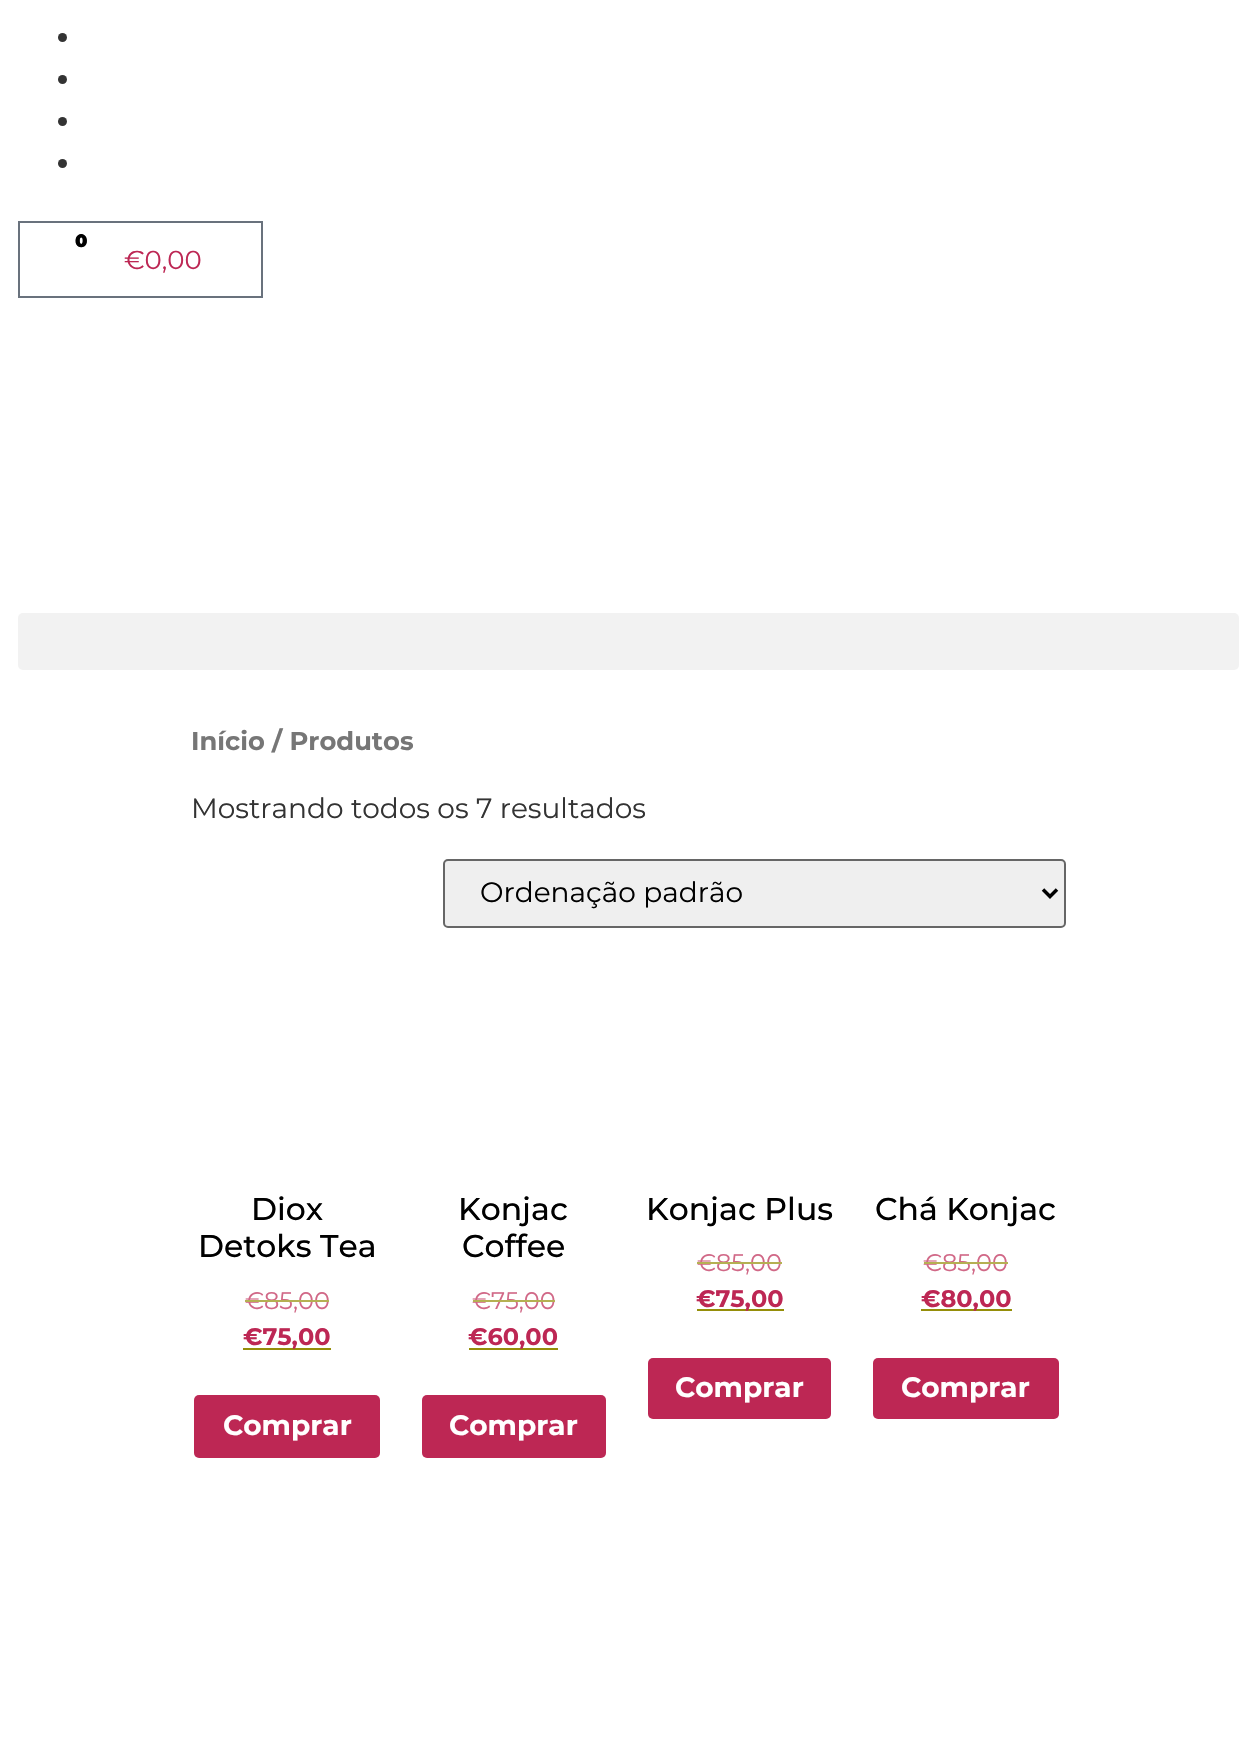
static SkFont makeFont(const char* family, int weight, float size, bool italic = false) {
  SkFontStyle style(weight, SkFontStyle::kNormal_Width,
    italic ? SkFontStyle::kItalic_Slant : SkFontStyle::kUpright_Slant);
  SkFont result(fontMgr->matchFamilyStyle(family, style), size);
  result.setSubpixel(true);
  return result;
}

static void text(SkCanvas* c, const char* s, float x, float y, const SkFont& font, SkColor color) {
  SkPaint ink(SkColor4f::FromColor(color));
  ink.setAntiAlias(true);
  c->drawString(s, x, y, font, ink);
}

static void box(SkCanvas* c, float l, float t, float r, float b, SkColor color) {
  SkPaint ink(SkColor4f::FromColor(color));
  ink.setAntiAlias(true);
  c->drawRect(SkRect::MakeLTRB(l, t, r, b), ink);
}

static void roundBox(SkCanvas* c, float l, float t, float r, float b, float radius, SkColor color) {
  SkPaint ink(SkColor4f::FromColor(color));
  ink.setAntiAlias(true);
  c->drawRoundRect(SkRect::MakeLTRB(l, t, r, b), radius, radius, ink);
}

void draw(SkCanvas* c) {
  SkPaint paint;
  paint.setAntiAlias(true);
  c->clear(0xffffffff);
  paint.setColor(0xff333333);
  c->drawCircle(62.5f, 37.5f, 4.5f, paint);
  c->drawCircle(62.5f, 79.5f, 4.5f, paint);
  c->drawCircle(62.5f, 121.5f, 4.5f, paint);
  c->drawCircle(62.5f, 163.5f, 4.5f, paint);
  paint.setStyle(SkPaint::kStroke_Style);
  paint.setStrokeWidth(2);
  paint.setColor(0xff69727d);
  c->drawRect(SkRect::MakeLTRB(19, 222, 262, 297), paint);
  SkFont face1 = makeFont("Montserrat", 900, 18);
  text(c, "0", 75, 247, face1, 0xff000000);
  SkFont face2 = makeFont("Montserrat", 400, 26);
  text(c, "€0,00", 124, 269, face2, 0xffbd2754);
  roundBox(c, 18, 613, 1239, 670, 5, 0xfff2f2f2);
  SkFont face3 = makeFont("Montserrat", 700, 25.75f);
  text(c, "Início / Produtos", 191, 750, face3, 0xff767676);
  SkFont face4 = makeFont("Montserrat", 400, 28);
  text(c, "Mostrando todos os 7 resultados", 191, 818, face4, 0xff333333);
  paint.setStyle(SkPaint::kFill_Style);
  paint.setColor(0xffefefef);
  c->drawRoundRect(SkRect::MakeLTRB(444, 860, 1065, 927), 4, 4, paint);
  paint.setStyle(SkPaint::kStroke_Style);
  paint.setColor(0xff666666);
  c->drawRoundRect(SkRect::MakeLTRB(444, 860, 1065, 927), 4, 4, paint);
  paint.setStrokeWidth(3.5f);
  paint.setColor(0xff000000);
  c->drawPath(SkPathBuilder().moveTo(1043, 889.5f).lineTo(1050, 896.5f).lineTo(1057, 889.5f).detach(), paint);
  text(c, "Ordenação padrão", 480, 902, face4, 0xff000000);
  SkFont face5 = makeFont("Montserrat", 500, 31.5f);
  text(c, "Diox", 251, 1220, face5, 0xff000000);
  text(c, "Detoks Tea", 198, 1257, face5, 0xff000000);
  SkFont face6 = makeFont("Montserrat", 400, 24);
  text(c, "€85,00", 245, 1309, face6, 0xffd16887);
  box(c, 245, 1300, 329, 1302, 0xffb5b053);
  box(c, 243, 1348, 331, 1350, 0xff958e09);
  SkFont face7 = makeFont("Montserrat", 700, 24);
  text(c, "€75,00", 243, 1345, face7, 0xffbd2754);
  roundBox(c, 194, 1395, 380, 1458, 5, 0xffbd2754);
  SkFont face8 = makeFont("Montserrat", 700, 28);
  text(c, "Comprar", 223, 1435, face8, 0xffffffff);
  text(c, "Konjac", 458, 1220, face5, 0xff000000);
  text(c, "Coffee", 462, 1257, face5, 0xff000000);
  text(c, "€75,00", 472, 1309, face6, 0xffd16887);
  box(c, 473, 1300, 555, 1302, 0xffb5b053);
  box(c, 469, 1348, 558, 1350, 0xff958e09);
  text(c, "€60,00", 468, 1345, face7, 0xffbd2754);
  roundBox(c, 422, 1395, 606, 1458, 5, 0xffbd2754);
  text(c, "Comprar", 449, 1435, face8, 0xffffffff);
  text(c, "Konjac Plus", 646, 1220, face5, 0xff000000);
  text(c, "€85,00", 697, 1271, face6, 0xffd16887);
  box(c, 697, 1262, 782, 1264, 0xffb5b053);
  box(c, 697, 1309, 784, 1311, 0xff958e09);
  text(c, "€75,00", 696, 1307, face7, 0xffbd2754);
  roundBox(c, 648, 1358, 831, 1419, 5, 0xffbd2754);
  text(c, "Comprar", 675, 1397, face8, 0xffffffff);
  text(c, "Chá Konjac", 875, 1220, face5, 0xff000000);
  text(c, "€85,00", 923, 1271, face6, 0xffd16887);
  box(c, 924, 1262, 1008, 1264, 0xffb5b053);
  box(c, 921, 1309, 1012, 1311, 0xff958e09);
  text(c, "€80,00", 921, 1307, face7, 0xffbd2754);
  roundBox(c, 873, 1358, 1059, 1419, 5, 0xffbd2754);
  text(c, "Comprar", 901, 1397, face8, 0xffffffff);
}
